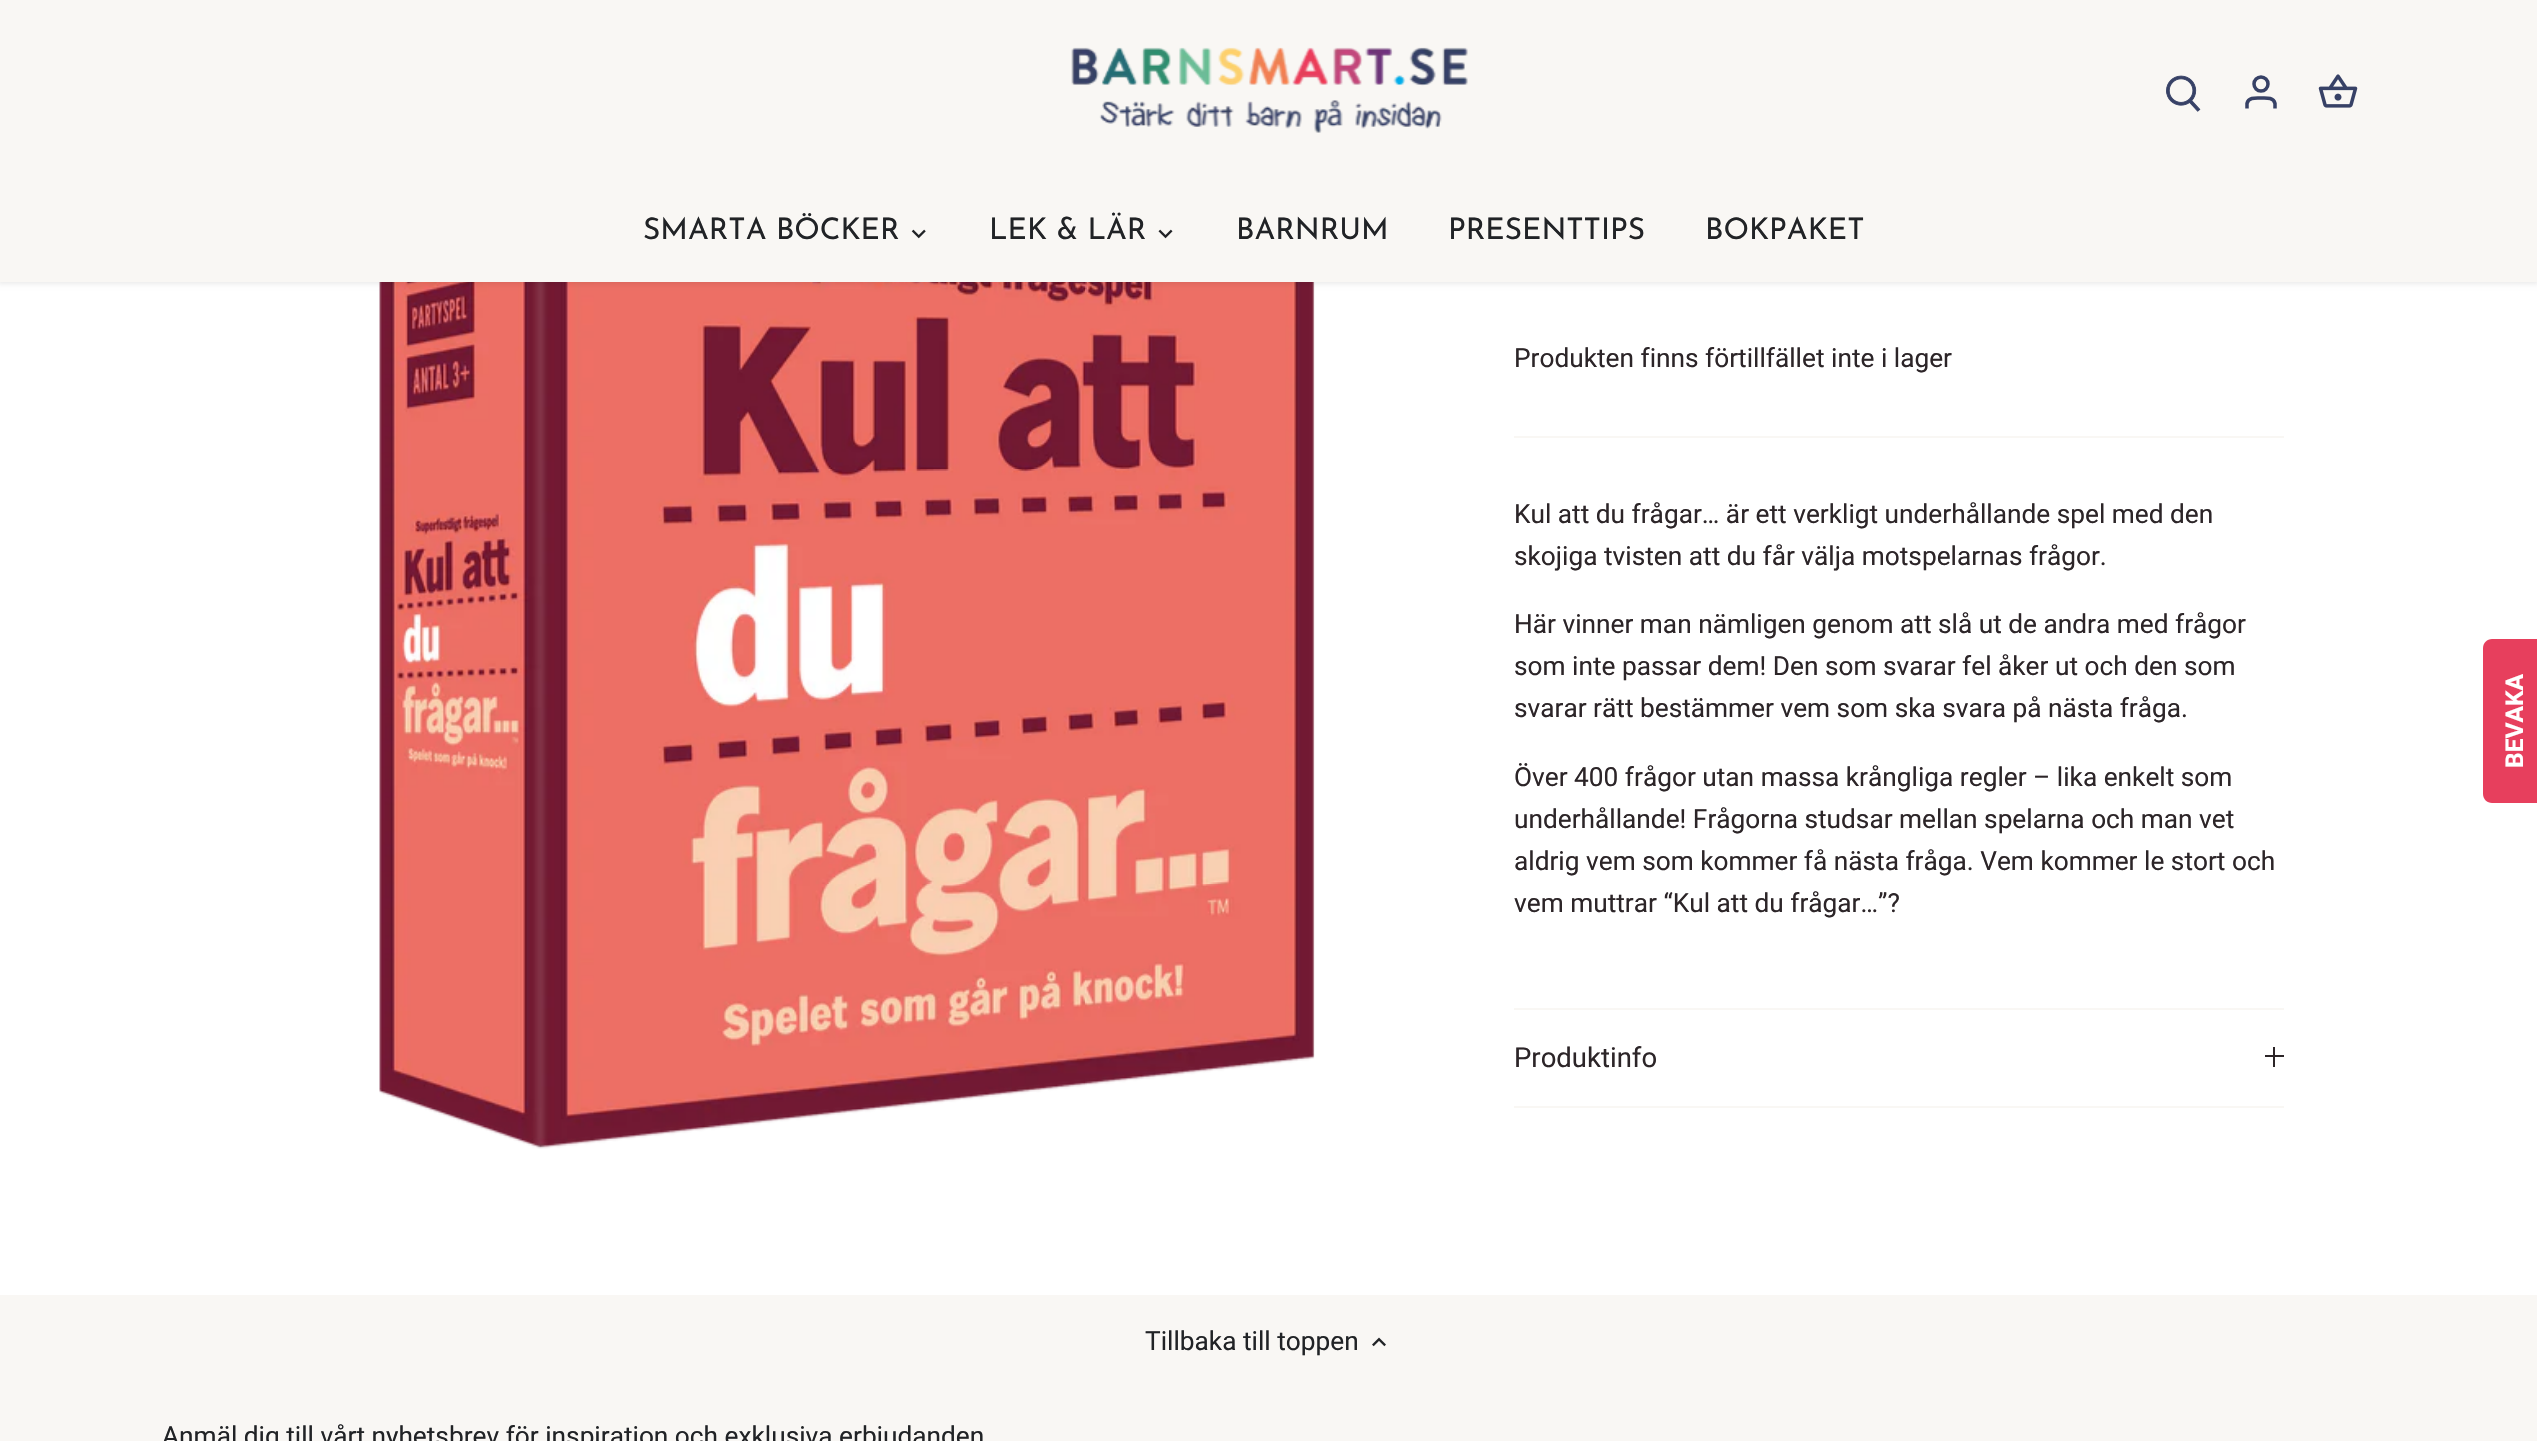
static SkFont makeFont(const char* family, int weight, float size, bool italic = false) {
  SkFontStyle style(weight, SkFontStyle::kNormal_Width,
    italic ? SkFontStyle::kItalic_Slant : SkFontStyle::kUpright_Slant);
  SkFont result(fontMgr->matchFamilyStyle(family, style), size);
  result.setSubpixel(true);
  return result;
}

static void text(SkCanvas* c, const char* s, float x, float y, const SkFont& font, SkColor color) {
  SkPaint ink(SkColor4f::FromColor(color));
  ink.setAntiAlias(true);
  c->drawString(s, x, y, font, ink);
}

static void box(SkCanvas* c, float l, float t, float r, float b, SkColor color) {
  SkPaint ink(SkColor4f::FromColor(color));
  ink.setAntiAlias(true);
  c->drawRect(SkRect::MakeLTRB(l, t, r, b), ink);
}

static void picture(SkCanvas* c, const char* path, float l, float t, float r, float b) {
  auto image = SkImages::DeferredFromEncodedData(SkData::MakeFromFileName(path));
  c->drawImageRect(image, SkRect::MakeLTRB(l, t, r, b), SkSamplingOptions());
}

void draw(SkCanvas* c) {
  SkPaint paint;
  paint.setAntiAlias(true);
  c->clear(0xfff9f7f4);
  box(c, 0, 282, 2537, 1295, 0xffffffff);
  picture(c, "img_06.png", 379, 282, 1315, 1149);
  paint.setColor(0x14000000);
  paint.setMaskFilter(SkMaskFilter::MakeBlur(kNormal_SkBlurStyle, 2.5f));
  c->drawRect(SkRect::MakeLTRB(-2, -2, 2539, 284), paint);
  paint.setMaskFilter(nullptr);
  box(c, 0, 0, 2537, 282, 0xfff9f7f4);
  picture(c, "img_01.png", 1071, 47, 1468, 133);
  picture(c, "img_02.png", 2166, 75, 2201, 112);
  paint.setStyle(SkPaint::kStroke_Style);
  paint.setStrokeWidth(3.5f);
  paint.setColor(0xff374166);
  c->drawCircle(2261, 84, 7, paint);
  c->drawPath(SkPathBuilder().moveTo(2275, 108.5f).lineTo(2275, 103.5f).cubicTo(2273.5f, 97, 2266, 98, 2261, 98).cubicTo(2256, 98, 2248.5f, 97, 2247, 103.5f).lineTo(2247, 108.5f).detach(), paint);
  picture(c, "img_03.png", 2318, 74, 2358, 108);
  SkFont face1 = makeFont("Josefin Sans", 400, 29.75f);
  text(c, "SMARTA BÖCKER", 643, 239, face1, 0xff212326);
  picture(c, "img_04.png", 911, 229, 926, 239);
  text(c, "LEK & LÄR", 989, 239, face1, 0xff212326);
  picture(c, "img_05.png", 1158, 229, 1173, 239);
  text(c, "BARNRUM", 1236, 239, face1, 0xff212326);
  text(c, "PRESENTTIPS", 1448, 239, face1, 0xff212326);
  text(c, "BOKPAKET", 1705, 239, face1, 0xff212326);
  SkFont face2 = makeFont("Roboto", 400, 26.25f);
  text(c, "Produkten finns förtillfället inte i lager", 1514, 367, face2, 0xff2c2528);
  box(c, 1514, 436, 2284, 438, 0xfff9f7f4);
  text(c, "Kul att du frågar… är ett verkligt underhållande spel med den", 1514, 523, face2, 0xff2c2528);
  text(c, "skojiga tvisten att du får välja motspelarnas frågor.", 1514, 565, face2, 0xff2c2528);
  text(c, "Här vinner man nämligen genom att slå ut de andra med frågor", 1514, 633, face2, 0xff2c2528);
  text(c, "som inte passar dem! Den som svarar fel åker ut och den som", 1514, 675, face2, 0xff2c2528);
  text(c, "svarar rätt bestämmer vem som ska svara på nästa fråga.", 1514, 717, face2, 0xff2c2528);
  text(c, "Över 400 frågor utan massa krångliga regler – lika enkelt som", 1514, 786, face2, 0xff2c2528);
  text(c, "underhållande! Frågorna studsar mellan spelarna och man vet", 1514, 828, face2, 0xff2c2528);
  text(c, "aldrig vem som kommer få nästa fråga. Vem kommer le stort och", 1514, 870, face2, 0xff2c2528);
  text(c, "vem muttrar “Kul att du frågar…”?", 1514, 912, face2, 0xff2c2528);
  box(c, 1514, 1008, 2284, 1010, 0xfff9f7f4);
  box(c, 1514, 1106, 2284, 1108, 0xfff9f7f4);
  SkFont face3 = makeFont("Roboto", 400, 27.5f);
  text(c, "Produktinfo", 1514, 1067, face3, 0xff2c2528);
  box(c, 2273, 1047, 2275, 1067, 0xff2c2528);
  box(c, 2265, 1055, 2284, 1057, 0xff2c2528);
  text(c, "Tillbaka till toppen", 1145, 1350, face2, 0xff212326);
  picture(c, "img_07.png", 1372, 1337, 1386, 1347);
  text(c, "Anmäl dig till vårt nyhetsbrev för inspiration och exklusiva erbjudanden", 162, 1445, face2, 0xff212326);
  paint.setStyle(SkPaint::kFill_Style);
  paint.setColor(0xffe73f5d);
  c->drawPath(SkPathBuilder().moveTo(2483, 794).lineTo(2483, 648).cubicTo(2483, 643, 2487, 639, 2492, 639).lineTo(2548, 639).lineTo(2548, 803).lineTo(2492, 803).cubicTo(2487, 803, 2483, 799, 2483, 794).close().detach(), paint);
  SkFont face4 = makeFont("Roboto", 700, 24.5f);
  c->save();
  c->rotate(-90, 2523, 768);
  text(c, "BEVAKA", 2523, 768, face4, 0xffffffff);
  c->restore();
}
